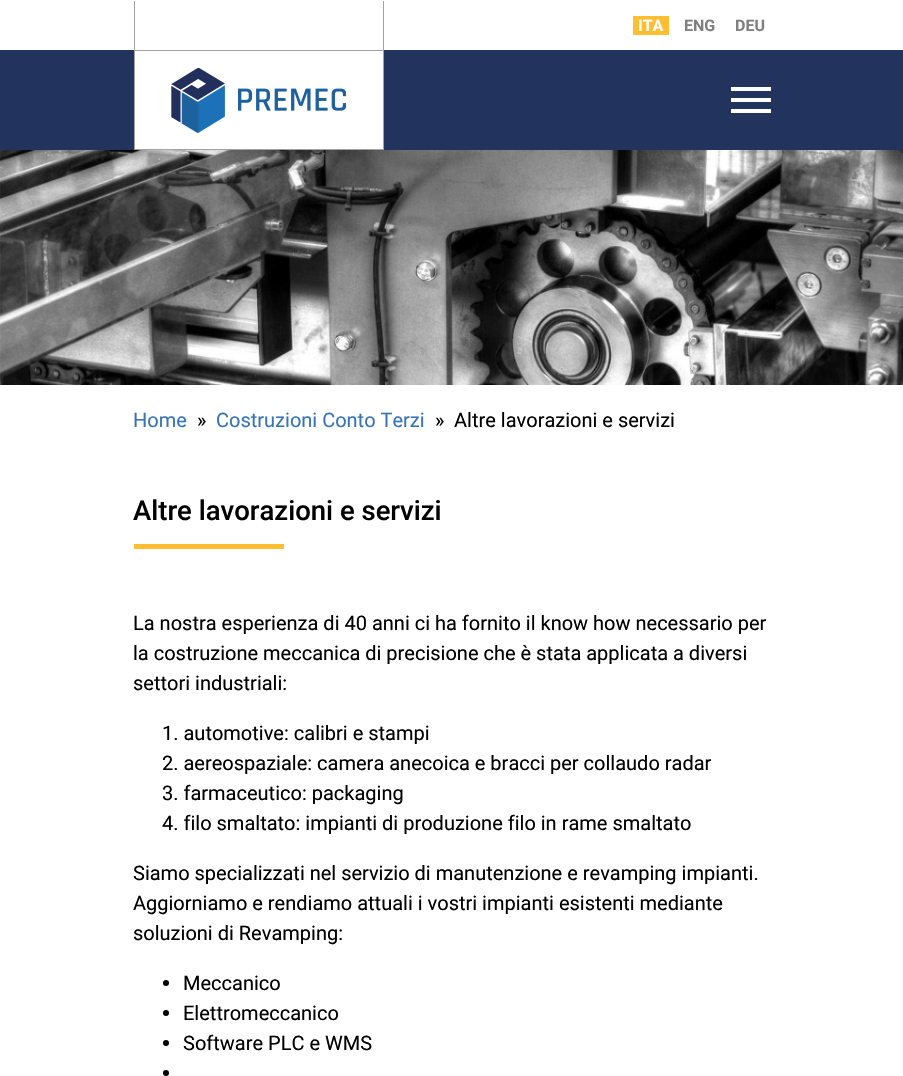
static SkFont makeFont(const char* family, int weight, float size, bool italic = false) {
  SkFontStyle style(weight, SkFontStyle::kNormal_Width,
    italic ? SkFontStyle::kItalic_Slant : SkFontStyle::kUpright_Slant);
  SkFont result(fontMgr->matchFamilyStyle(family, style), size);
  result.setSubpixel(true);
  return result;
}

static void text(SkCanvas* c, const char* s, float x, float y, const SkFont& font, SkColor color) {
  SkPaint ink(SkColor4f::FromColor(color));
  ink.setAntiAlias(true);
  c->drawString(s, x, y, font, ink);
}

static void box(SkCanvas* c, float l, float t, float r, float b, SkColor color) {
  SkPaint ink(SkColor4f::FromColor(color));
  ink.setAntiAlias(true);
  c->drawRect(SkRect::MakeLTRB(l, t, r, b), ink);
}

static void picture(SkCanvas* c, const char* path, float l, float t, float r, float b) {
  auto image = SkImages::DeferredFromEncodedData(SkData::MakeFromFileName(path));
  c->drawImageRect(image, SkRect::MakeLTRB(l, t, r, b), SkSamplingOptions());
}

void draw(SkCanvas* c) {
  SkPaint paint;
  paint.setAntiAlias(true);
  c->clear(0xffffffff);
  box(c, 0, 50, 903, 150, 0xff22335e);
  paint.setColor(0xffffffff);
  c->drawRect(SkRect::MakeLTRB(134.5f, 50.5f, 383.5f, 149.5f), paint);
  paint.setStyle(SkPaint::kStroke_Style);
  paint.setStrokeWidth(1);
  paint.setColor(0xffa2a2a2);
  c->drawRect(SkRect::MakeLTRB(134.5f, 50.5f, 383.5f, 149.5f), paint);
  box(c, 383, 1, 384, 51, 0xffa2a2a2);
  box(c, 134, 1, 135, 51, 0xffa2a2a2);
  picture(c, "img_01.png", 171, 68, 346, 133);
  box(c, 731, 109, 771, 113, 0xffffffff);
  box(c, 731, 98, 771, 102, 0xffffffff);
  box(c, 731, 87, 771, 91, 0xffffffff);
  box(c, 633, 16, 669, 35, 0xffffbd32);
  SkFont face1 = makeFont("Roboto", 700, 16);
  text(c, "ITA", 638, 31, face1, 0xffffffff);
  text(c, "ENG", 684, 31, face1, 0xff808080);
  text(c, "DEU", 735, 31, face1, 0xff808080);
  picture(c, "img_02.png", 0, 150, 903, 385);
  SkFont face2 = makeFont("Roboto", 400, 20);
  text(c, "Home", 133, 427, face2, 0xff3774b6);
  text(c, "»", 197, 427, face2, 0xff000000);
  text(c, "Costruzioni Conto Terzi", 216, 427, face2, 0xff3774b6);
  text(c, "»", 435, 427, face2, 0xff000000);
  text(c, "Altre lavorazioni e servizi", 454, 427, face2, 0xff000000);
  SkFont face3 = makeFont("Roboto", 500, 27.5f);
  text(c, "Altre lavorazioni e servizi", 133, 520, face3, 0xff000000);
  box(c, 134, 544, 284, 549, 0xffffbd32);
  text(c, "La nostra esperienza di 40 anni ci ha fornito il know how necessario per", 133, 630, face2, 0xff000000);
  text(c, "la costruzione meccanica di precisione che è stata applicata a diversi", 133, 660, face2, 0xff000000);
  text(c, "settori industriali:", 133, 690, face2, 0xff000000);
  text(c, "1. automotive: calibri e stampi", 162, 740, face2, 0xff000000);
  text(c, "2. aereospaziale: camera anecoica e bracci per collaudo radar", 162, 770, face2, 0xff000000);
  text(c, "3. farmaceutico: packaging", 162, 800, face2, 0xff000000);
  text(c, "4. filo smaltato: impianti di produzione filo in rame smaltato", 162, 830, face2, 0xff000000);
  text(c, "Siamo specializzati nel servizio di manutenzione e revamping impianti.", 133, 880, face2, 0xff000000);
  text(c, "Aggiorniamo e rendiamo attuali i vostri impianti esistenti mediante", 133, 910, face2, 0xff000000);
  text(c, "soluzioni di Revamping:", 133, 940, face2, 0xff000000);
  paint.setStyle(SkPaint::kFill_Style);
  paint.setColor(0xff000000);
  c->drawCircle(166, 983, 3, paint);
  text(c, "Meccanico", 183, 990, face2, 0xff000000);
  c->drawCircle(166, 1013, 3, paint);
  text(c, "Elettromeccanico", 183, 1020, face2, 0xff000000);
  c->drawCircle(166, 1043, 3, paint);
  text(c, "Software PLC e WMS", 183, 1050, face2, 0xff000000);
  c->drawCircle(166, 1073, 3, paint);
}
